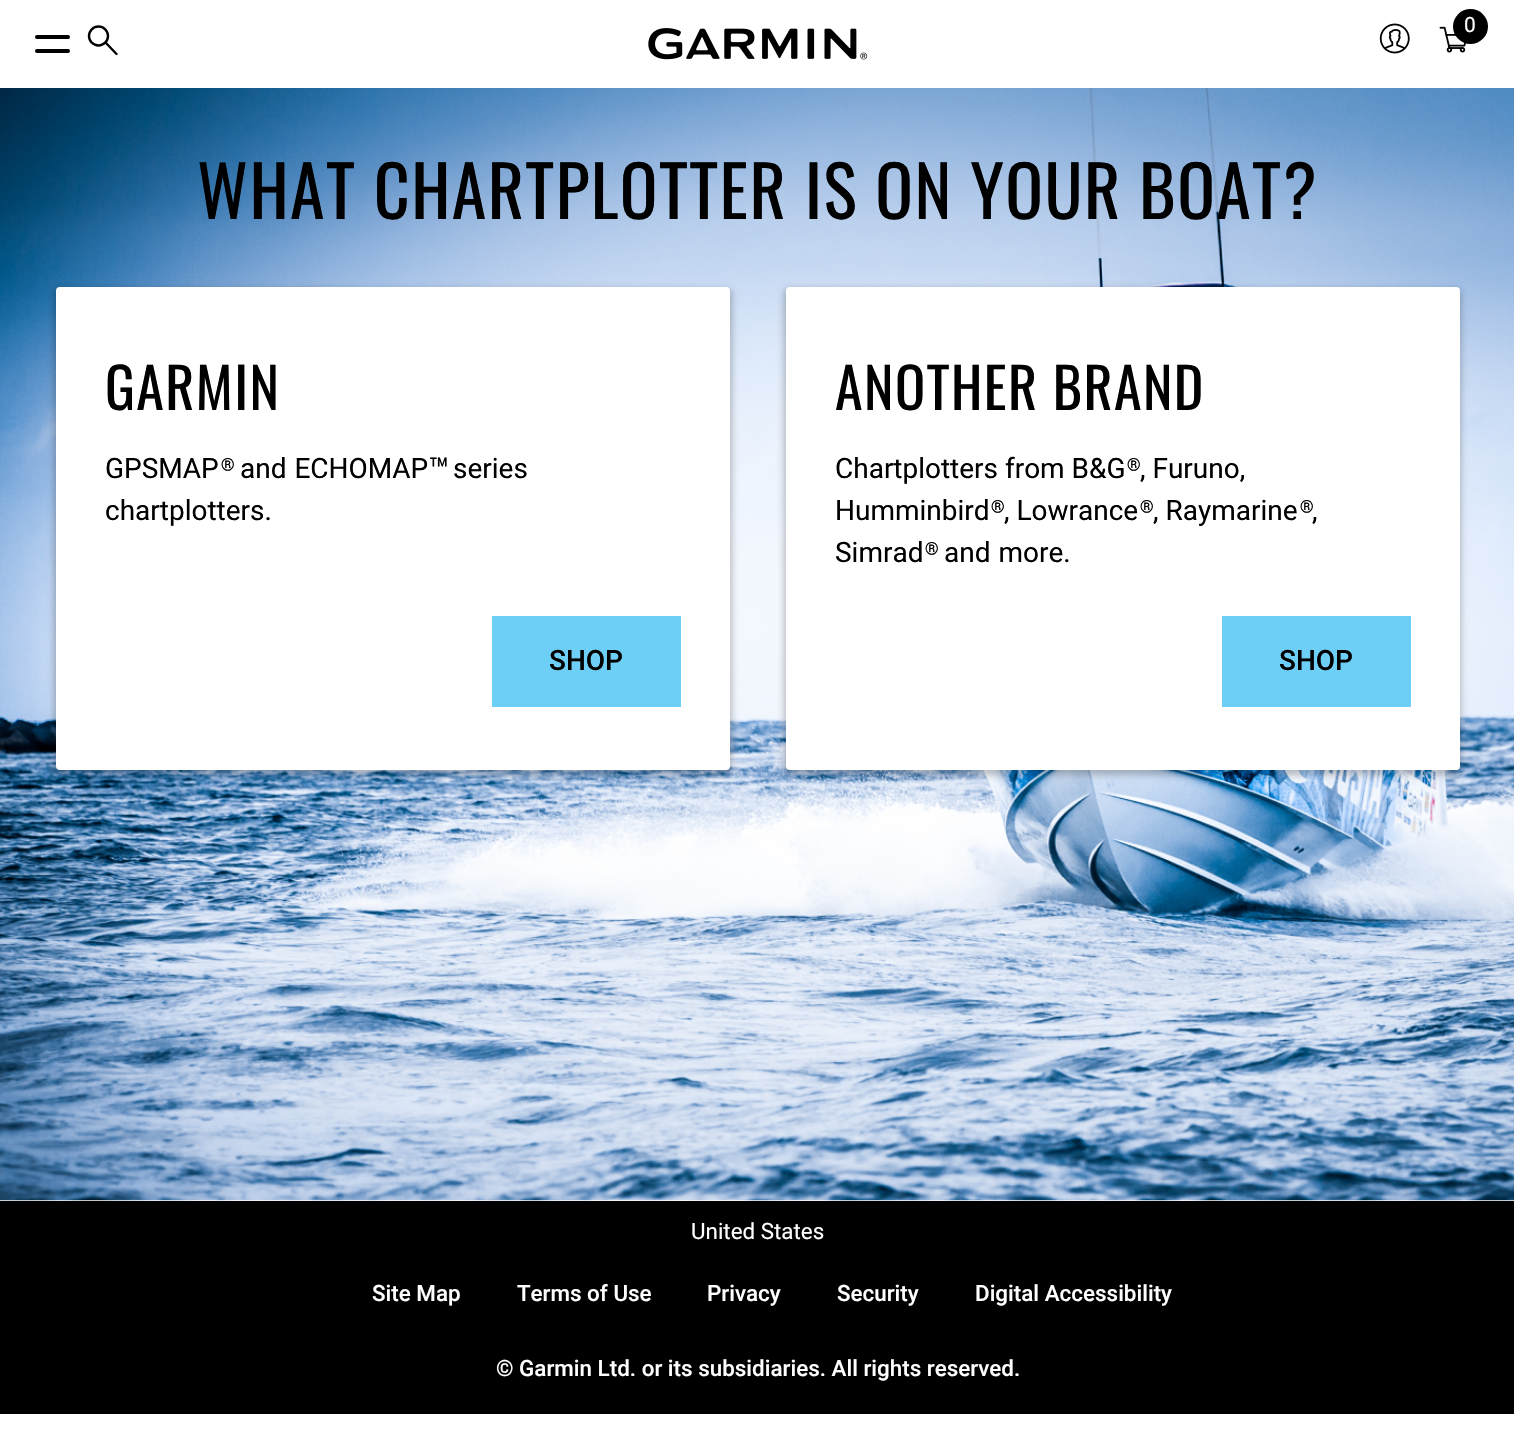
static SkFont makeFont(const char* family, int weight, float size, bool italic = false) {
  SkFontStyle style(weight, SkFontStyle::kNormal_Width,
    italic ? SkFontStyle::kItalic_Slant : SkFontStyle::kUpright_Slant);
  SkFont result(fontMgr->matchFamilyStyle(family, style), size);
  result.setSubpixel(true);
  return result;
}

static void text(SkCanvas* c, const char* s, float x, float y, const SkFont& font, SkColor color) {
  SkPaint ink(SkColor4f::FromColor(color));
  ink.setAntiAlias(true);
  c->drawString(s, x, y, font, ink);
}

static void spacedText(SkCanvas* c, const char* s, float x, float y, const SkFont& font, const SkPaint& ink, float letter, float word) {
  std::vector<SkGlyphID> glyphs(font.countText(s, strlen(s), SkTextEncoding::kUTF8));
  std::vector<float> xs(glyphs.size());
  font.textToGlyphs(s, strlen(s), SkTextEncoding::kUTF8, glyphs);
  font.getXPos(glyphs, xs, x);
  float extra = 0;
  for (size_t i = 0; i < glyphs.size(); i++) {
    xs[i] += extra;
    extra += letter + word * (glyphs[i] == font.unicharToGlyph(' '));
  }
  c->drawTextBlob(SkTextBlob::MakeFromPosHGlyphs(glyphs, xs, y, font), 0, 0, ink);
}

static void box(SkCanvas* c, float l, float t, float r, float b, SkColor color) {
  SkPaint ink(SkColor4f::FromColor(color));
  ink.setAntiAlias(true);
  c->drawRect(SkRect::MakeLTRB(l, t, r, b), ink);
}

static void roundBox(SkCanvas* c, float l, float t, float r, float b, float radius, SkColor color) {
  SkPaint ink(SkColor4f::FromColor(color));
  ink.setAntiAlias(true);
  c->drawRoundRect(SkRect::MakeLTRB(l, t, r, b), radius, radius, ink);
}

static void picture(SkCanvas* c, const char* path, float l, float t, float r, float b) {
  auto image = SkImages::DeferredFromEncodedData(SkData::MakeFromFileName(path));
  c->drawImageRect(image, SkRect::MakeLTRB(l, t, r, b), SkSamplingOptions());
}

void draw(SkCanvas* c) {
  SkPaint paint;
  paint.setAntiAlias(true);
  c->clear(0xffffffff);
  paint.setStyle(SkPaint::kStroke_Style);
  paint.setStrokeWidth(2.4f);
  paint.setColor(0xff000000);
  c->drawCircle(98.5f, 36, 9.5f, paint);
  paint.setStrokeCap(SkPaint::kRound_Cap);
  paint.setStrokeJoin(SkPaint::kRound_Join);
  c->drawPath(SkPathBuilder().moveTo(105.5f, 42.5f).lineTo(116.5f, 54).detach(), paint);
  picture(c, "img_01.png", 1379, 23, 1410, 54);
  picture(c, "img_02.png", 1439, 26, 1467, 53);
  paint.setStyle(SkPaint::kFill_Style);
  c->drawCircle(1470.5f, 26.5f, 17.5f, paint);
  SkFont face1 = makeFont("Roboto", 400, 21);
  text(c, "0", 1464, 32, face1, 0xffffffff);
  roundBox(c, 35, 35, 70, 39, 2, 0xff000000);
  roundBox(c, 35, 49, 70, 53, 2, 0xff000000);
  picture(c, "img_03.png", 648, 28, 868, 60);
  picture(c, "img_04.png", 0, 88, 1514, 1201);
  SkFont face2 = makeFont("Oswald", 400, 70);
  spacedText(c, "WHAT CHARTPLOTTER IS ON YOUR BOAT?", 197, 219, face2, paint, 1.4f, 0);
  paint.setColor(0x3d000000);
  paint.setMaskFilter(SkMaskFilter::MakeBlur(kNormal_SkBlurStyle, 3.5f));
  c->drawRoundRect(SkRect::MakeLTRB(54, 289, 732, 775), 5, 5, paint);
  paint.setMaskFilter(nullptr);
  roundBox(c, 56, 287, 730, 770, 4, 0xffffffff);
  SkFont face3 = makeFont("Oswald", 400, 56);
  paint.setColor(0xff000000);
  spacedText(c, "GARMIN", 105, 410, face3, paint, 1.4f, 0);
  SkFont face4 = makeFont("Roboto", 400, 28);
  text(c, "GPSMAP", 105, 478, face4, 0xff000000);
  SkFont face5 = makeFont("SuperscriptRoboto", 400, 28);
  text(c, "®", 219, 478, face5, 0xff000000);
  spacedText(c, "and ECHOMAP", 240, 478, face4, paint, 0, 1);
  text(c, "™", 428, 478, face5, 0xff000000);
  text(c, "series", 453, 478, face4, 0xff000000);
  text(c, "chartplotters.", 105, 520, face4, 0xff000000);
  box(c, 492, 616, 681, 707, 0xff6dcff6);
  SkFont face6 = makeFont("Roboto", 500, 28);
  text(c, "SHOP", 549, 670, face6, 0xff000000);
  paint.setColor(0x3d000000);
  paint.setMaskFilter(SkMaskFilter::MakeBlur(kNormal_SkBlurStyle, 3.5f));
  c->drawRoundRect(SkRect::MakeLTRB(784, 289, 1461, 775), 5, 5, paint);
  paint.setMaskFilter(nullptr);
  roundBox(c, 786, 287, 1460, 770, 4, 0xffffffff);
  paint.setColor(0xff000000);
  spacedText(c, "ANOTHER BRAND", 835, 410, face3, paint, 1.4f, 0);
  text(c, "Chartplotters from B&G", 835, 478, face4, 0xff000000);
  text(c, "®", 1125, 478, face5, 0xff000000);
  text(c, ", Furuno,", 1140, 478, face4, 0xff000000);
  text(c, "Humminbird", 835, 520, face4, 0xff000000);
  text(c, "®", 989, 520, face5, 0xff000000);
  text(c, ", Lowrance", 1004, 520, face4, 0xff000000);
  text(c, "®", 1138, 520, face5, 0xff000000);
  text(c, ", Raymarine", 1153, 520, face4, 0xff000000);
  text(c, "®", 1298, 520, face5, 0xff000000);
  text(c, ",", 1312, 520, face4, 0xff000000);
  text(c, "Simrad", 835, 562, face4, 0xff000000);
  text(c, "®", 923, 562, face5, 0xff000000);
  spacedText(c, "and more.", 944, 562, face4, paint, 0, 1);
  box(c, 1222, 616, 1411, 707, 0xff6dcff6);
  text(c, "SHOP", 1279, 670, face6, 0xff000000);
  box(c, 0, 1201, 1514, 1414, 0xff000000);
  SkFont face7 = makeFont("Roboto", 400, 22.4f);
  text(c, "United States", 691, 1239, face7, 0xffffffff);
  SkFont face8 = makeFont("Roboto", 500, 22.4f);
  text(c, "Site Map", 372, 1301, face8, 0xffffffff);
  text(c, "Terms of Use", 517, 1301, face8, 0xffffffff);
  text(c, "Privacy", 707, 1301, face8, 0xffffffff);
  text(c, "Security", 837, 1301, face8, 0xffffffff);
  text(c, "Digital Accessibility", 975, 1301, face8, 0xffffffff);
  text(c, "© Garmin Ltd. or its subsidiaries. All rights reserved.", 496, 1376, face8, 0xffffffff);
}
